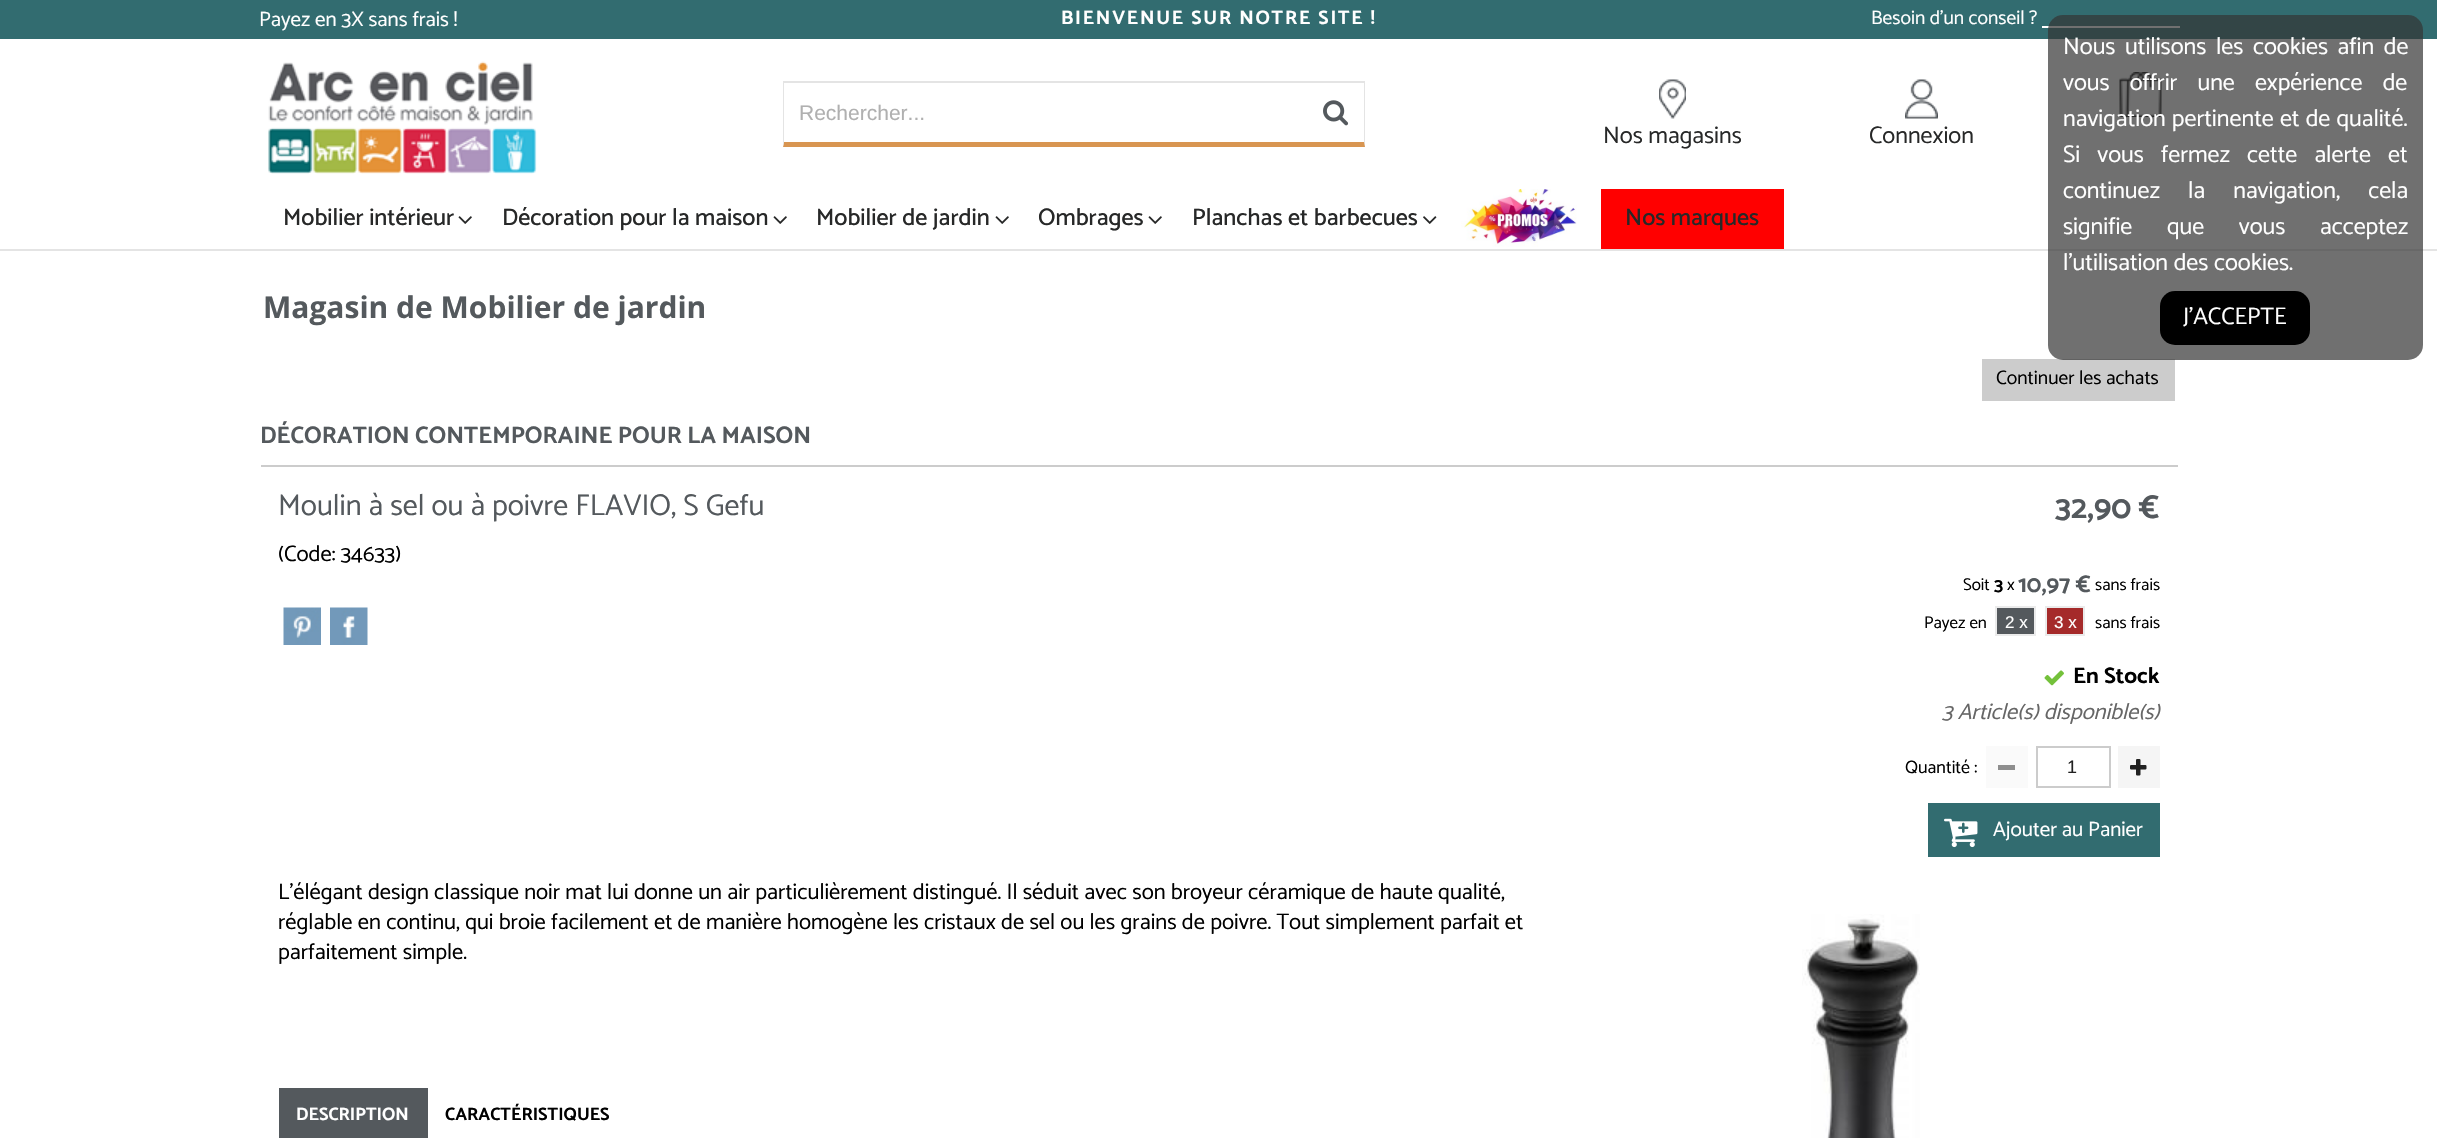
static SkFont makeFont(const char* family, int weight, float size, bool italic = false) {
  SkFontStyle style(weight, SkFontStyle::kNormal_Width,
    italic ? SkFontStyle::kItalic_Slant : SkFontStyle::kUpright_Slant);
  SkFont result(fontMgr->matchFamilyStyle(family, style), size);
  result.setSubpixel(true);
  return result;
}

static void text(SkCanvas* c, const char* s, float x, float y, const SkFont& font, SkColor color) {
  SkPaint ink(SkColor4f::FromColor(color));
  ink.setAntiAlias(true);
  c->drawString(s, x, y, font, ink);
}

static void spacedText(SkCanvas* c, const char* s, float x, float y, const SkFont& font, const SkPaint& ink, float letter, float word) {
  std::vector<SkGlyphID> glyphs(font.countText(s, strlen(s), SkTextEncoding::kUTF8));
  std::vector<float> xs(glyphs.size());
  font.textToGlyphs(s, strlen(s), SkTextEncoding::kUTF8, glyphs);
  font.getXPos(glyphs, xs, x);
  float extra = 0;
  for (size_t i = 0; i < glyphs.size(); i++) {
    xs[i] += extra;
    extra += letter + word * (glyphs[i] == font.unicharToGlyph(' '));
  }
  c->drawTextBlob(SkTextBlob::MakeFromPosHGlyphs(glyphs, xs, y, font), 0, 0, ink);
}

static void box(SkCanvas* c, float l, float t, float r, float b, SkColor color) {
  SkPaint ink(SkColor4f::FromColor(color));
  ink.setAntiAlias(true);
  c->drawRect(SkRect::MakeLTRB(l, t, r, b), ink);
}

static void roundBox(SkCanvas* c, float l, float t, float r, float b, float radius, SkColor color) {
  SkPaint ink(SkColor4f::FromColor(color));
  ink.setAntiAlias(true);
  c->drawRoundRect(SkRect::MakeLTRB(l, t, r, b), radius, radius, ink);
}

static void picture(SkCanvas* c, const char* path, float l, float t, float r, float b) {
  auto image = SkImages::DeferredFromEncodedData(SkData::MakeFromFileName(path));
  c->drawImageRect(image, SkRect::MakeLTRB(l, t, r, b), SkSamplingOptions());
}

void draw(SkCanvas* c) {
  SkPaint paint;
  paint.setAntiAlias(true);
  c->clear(0xffffffff);
  box(c, 0, 0, 2437, 39, 0xff326c70);
  box(c, 0, 249, 2437, 251, 0xffe4e4e4);
  SkFont face1 = makeFont("Catamaran", 400, 21);
  text(c, "Payez en 3X sans frais !", 259, 26, face1, 0xffffffff);
  SkFont face2 = makeFont("Catamaran", 700, 19.5f);
  paint.setColor(0xffffffff);
  spacedText(c, "BIENVENUE SUR NOTRE SITE !", 1061, 24, face2, paint, 1.8f, 0);
  SkFont face3 = makeFont("Catamaran", 400, 19.5f);
  text(c, "Besoin d’un conseil ?", 1871, 24, face3, 0xffffffff);
  box(c, 2042, 26, 2180, 28, 0xffffffff);
  picture(c, "img_01.png", 268, 61, 537, 174);
  box(c, 783, 81, 1365, 83, 0xffe4e4e4);
  paint.setColor(0xffe4e4e4);
  c->drawPath(SkPathBuilder().moveTo(1365, 81).lineTo(1365, 147).lineTo(1364, 142).lineTo(1364, 82).close().detach(), paint);
  paint.setColor(0xffd89551);
  c->drawPath(SkPathBuilder().moveTo(1365, 147).lineTo(783, 147).lineTo(784, 142).lineTo(1364, 142).close().detach(), paint);
  paint.setColor(0xffe4e4e4);
  c->drawPath(SkPathBuilder().moveTo(783, 147).lineTo(783, 81).lineTo(784, 82).lineTo(784, 142).close().detach(), paint);
  SkFont face4 = makeFont("Liberation Sans", 400, 21);
  text(c, "Rechercher...", 799, 120, face4, 0xffb0b0b0);
  picture(c, "img_02.png", 1323, 100, 1349, 126);
  picture(c, "img_03.png", 2119, 72, 2162, 117);
  picture(c, "img_04.png", 1659, 79, 1686, 119);
  SkFont face5 = makeFont("Catamaran", 400, 24);
  text(c, "Nos magasins", 1603, 143, face5, 0xff272828);
  picture(c, "img_05.png", 1905, 79, 1938, 119);
  text(c, "Connexion", 1869, 143, face5, 0xff272828);
  SkFont face6 = makeFont("Catamaran", 500, 24);
  text(c, "Mobilier intérieur", 283, 225, face6, 0xff272828);
  picture(c, "img_06.png", 458, 216, 472, 224);
  text(c, "Décoration pour la maison", 502, 225, face6, 0xff272828);
  picture(c, "img_06.png", 773, 216, 787, 224);
  text(c, "Mobilier de jardin", 816, 225, face6, 0xff272828);
  picture(c, "img_06.png", 995, 216, 1009, 224);
  text(c, "Ombrages", 1038, 225, face6, 0xff272828);
  picture(c, "img_06.png", 1148, 216, 1162, 224);
  text(c, "Planchas et barbecues", 1192, 225, face6, 0xff272828);
  picture(c, "img_07.png", 1423, 216, 1437, 224);
  picture(c, "img_08.png", 1461, 189, 1577, 247);
  box(c, 1601, 189, 1784, 249, 0xffff0000);
  text(c, "Nos marques", 1625, 225, face6, 0xff272828);
  SkFont face7 = makeFont("Open Sans", 700, 30);
  text(c, "Magasin de Mobilier de jardin", 263, 318, face7, 0xff54595d);
  box(c, 1982, 359, 2175, 401, 0xffcccccc);
  text(c, "Continuer les achats", 1996, 384, face3, 0xff000000);
  SkFont face8 = makeFont("Catamaran", 700, 24);
  text(c, "DÉCORATION CONTEMPORAINE POUR LA MAISON", 260, 443, face8, 0xff54595d);
  box(c, 261, 465, 2178, 467, 0xffcccccc);
  SkFont face9 = makeFont("Catamaran", 400, 30);
  text(c, "Moulin à sel ou à poivre FLAVIO, S Gefu", 278, 515, face9, 0xff54595d);
  SkFont face10 = makeFont("Catamaran", 400, 22.5f);
  text(c, "(Code: 34633)", 278, 561, face10, 0xff000000);
  picture(c, "img_09.png", 283, 607, 321, 645);
  picture(c, "img_10.png", 330, 607, 368, 645);
  SkFont face11 = makeFont("Catamaran", 700, 33);
  text(c, "32,90 €", 2055, 518, face11, 0xff54595d);
  SkFont face12 = makeFont("Catamaran", 400, 17);
  text(c, "Soit", 1963, 590, face12, 0xff000000);
  SkFont face13 = makeFont("Catamaran", 700, 19);
  text(c, "3", 1994, 591, face13, 0xff000000);
  text(c, "x", 2007, 590, face12, 0xff000000);
  text(c, "10,97 €", 2018, 592, face8, 0xff54595d);
  text(c, "sans frais", 2095, 590, face12, 0xff000000);
  text(c, "Payez en", 1924, 628, face12, 0xff000000);
  paint.setColor(0xff54595d);
  c->drawRect(SkRect::MakeLTRB(1996, 607, 2035, 635), paint);
  paint.setStyle(SkPaint::kStroke_Style);
  paint.setStrokeWidth(2);
  paint.setColor(0xffebebeb);
  c->drawRect(SkRect::MakeLTRB(1996, 607, 2035, 635), paint);
  SkFont face14 = makeFont("Liberation Sans", 400, 17);
  text(c, "2 x", 2005, 628, face14, 0xffffffff);
  paint.setStyle(SkPaint::kFill_Style);
  paint.setColor(0xffa52a2a);
  c->drawRect(SkRect::MakeLTRB(2046, 607, 2084, 635), paint);
  paint.setStyle(SkPaint::kStroke_Style);
  paint.setColor(0xffebebeb);
  c->drawRect(SkRect::MakeLTRB(2046, 607, 2084, 635), paint);
  text(c, "3 x", 2054, 628, face14, 0xffffffff);
  text(c, "sans frais", 2095, 628, face12, 0xff000000);
  picture(c, "img_11.png", 2044, 670, 2064, 686);
  SkFont face15 = makeFont("Catamaran", 700, 22.5f);
  text(c, "En Stock", 2073, 683, face15, 0xff000000);
  SkFont face16 = makeFont("Catamaran", 400, 22.5f, true);
  text(c, "3 Article(s) disponible(s)", 1942, 719, face16, 0xff666666);
  SkFont face17 = makeFont("Catamaran", 400, 18);
  text(c, "Quantité :", 1905, 773, face17, 0xff000000);
  box(c, 1986, 746, 2028, 788, 0xfffafafa);
  box(c, 1998, 765, 2015, 770, 0xff8e8e8e);
  paint.setColor(0xffcccccc);
  c->drawRect(SkRect::MakeLTRB(2037, 747, 2110, 787), paint);
  SkFont face18 = makeFont("Liberation Sans", 400, 18);
  text(c, "1", 2067, 773, face18, 0xff212121);
  box(c, 2118, 746, 2160, 788, 0xfff5f5f5);
  picture(c, "img_12.png", 2130, 759, 2147, 776);
  box(c, 1928, 803, 2160, 857, 0xff326c70);
  picture(c, "img_13.png", 1944, 818, 1978, 848);
  text(c, "Ajouter au Panier", 1993, 836, face1, 0xffffffff);
  text(c, "L'élégant design classique noir mat lui donne un air particulièrement distingué. Il séduit avec son broyeur céramique de haute qualité,", 278, 899, face10, 0xff000000);
  text(c, "réglable en continu, qui broie facilement et de manière homogène les cristaux de sel ou les grains de poivre. Tout simplement parfait et", 278, 929, face10, 0xff000000);
  text(c, "parfaitement simple.", 278, 959, face10, 0xff000000);
  box(c, 279, 1088, 428, 1138, 0xff54595d);
  SkFont face19 = makeFont("Catamaran", 700, 18);
  text(c, "DESCRIPTION", 296, 1120, face19, 0xffffffff);
  text(c, "CARACTÉRISTIQUES", 445, 1120, face19, 0xff000000);
  picture(c, "img_14.png", 1802, 914, 1920, 1138);
  roundBox(c, 2048, 15, 2423, 360, 15, 0xb3333333);
  paint.setStyle(SkPaint::kFill_Style);
  paint.setColor(0xffffffff);
  spacedText(c, "Nous utilisons les cookies afin de", 2063, 54, face5, paint, 0, 4);
  spacedText(c, "vous offrir une expérience de", 2063, 90, face5, paint, 0, 14.5f);
  spacedText(c, "navigation pertinente et de qualité.", 2063, 126, face5, paint, 0, 0.5f);
  spacedText(c, "Si vous fermez cette alerte et", 2063, 162, face5, paint, 0, 11.5f);
  spacedText(c, "continuez la navigation, cela", 2063, 198, face5, paint, 0, 22.5f);
  spacedText(c, "signifie que vous acceptez", 2063, 234, face5, paint, 0, 29);
  text(c, "l'utilisation des cookies.", 2063, 270, face5, 0xffffffff);
  roundBox(c, 2160, 291, 2310, 345, 15, 0xff000000);
  text(c, "J'ACCEPTE", 2183, 324, face5, 0xffffffff);
}
